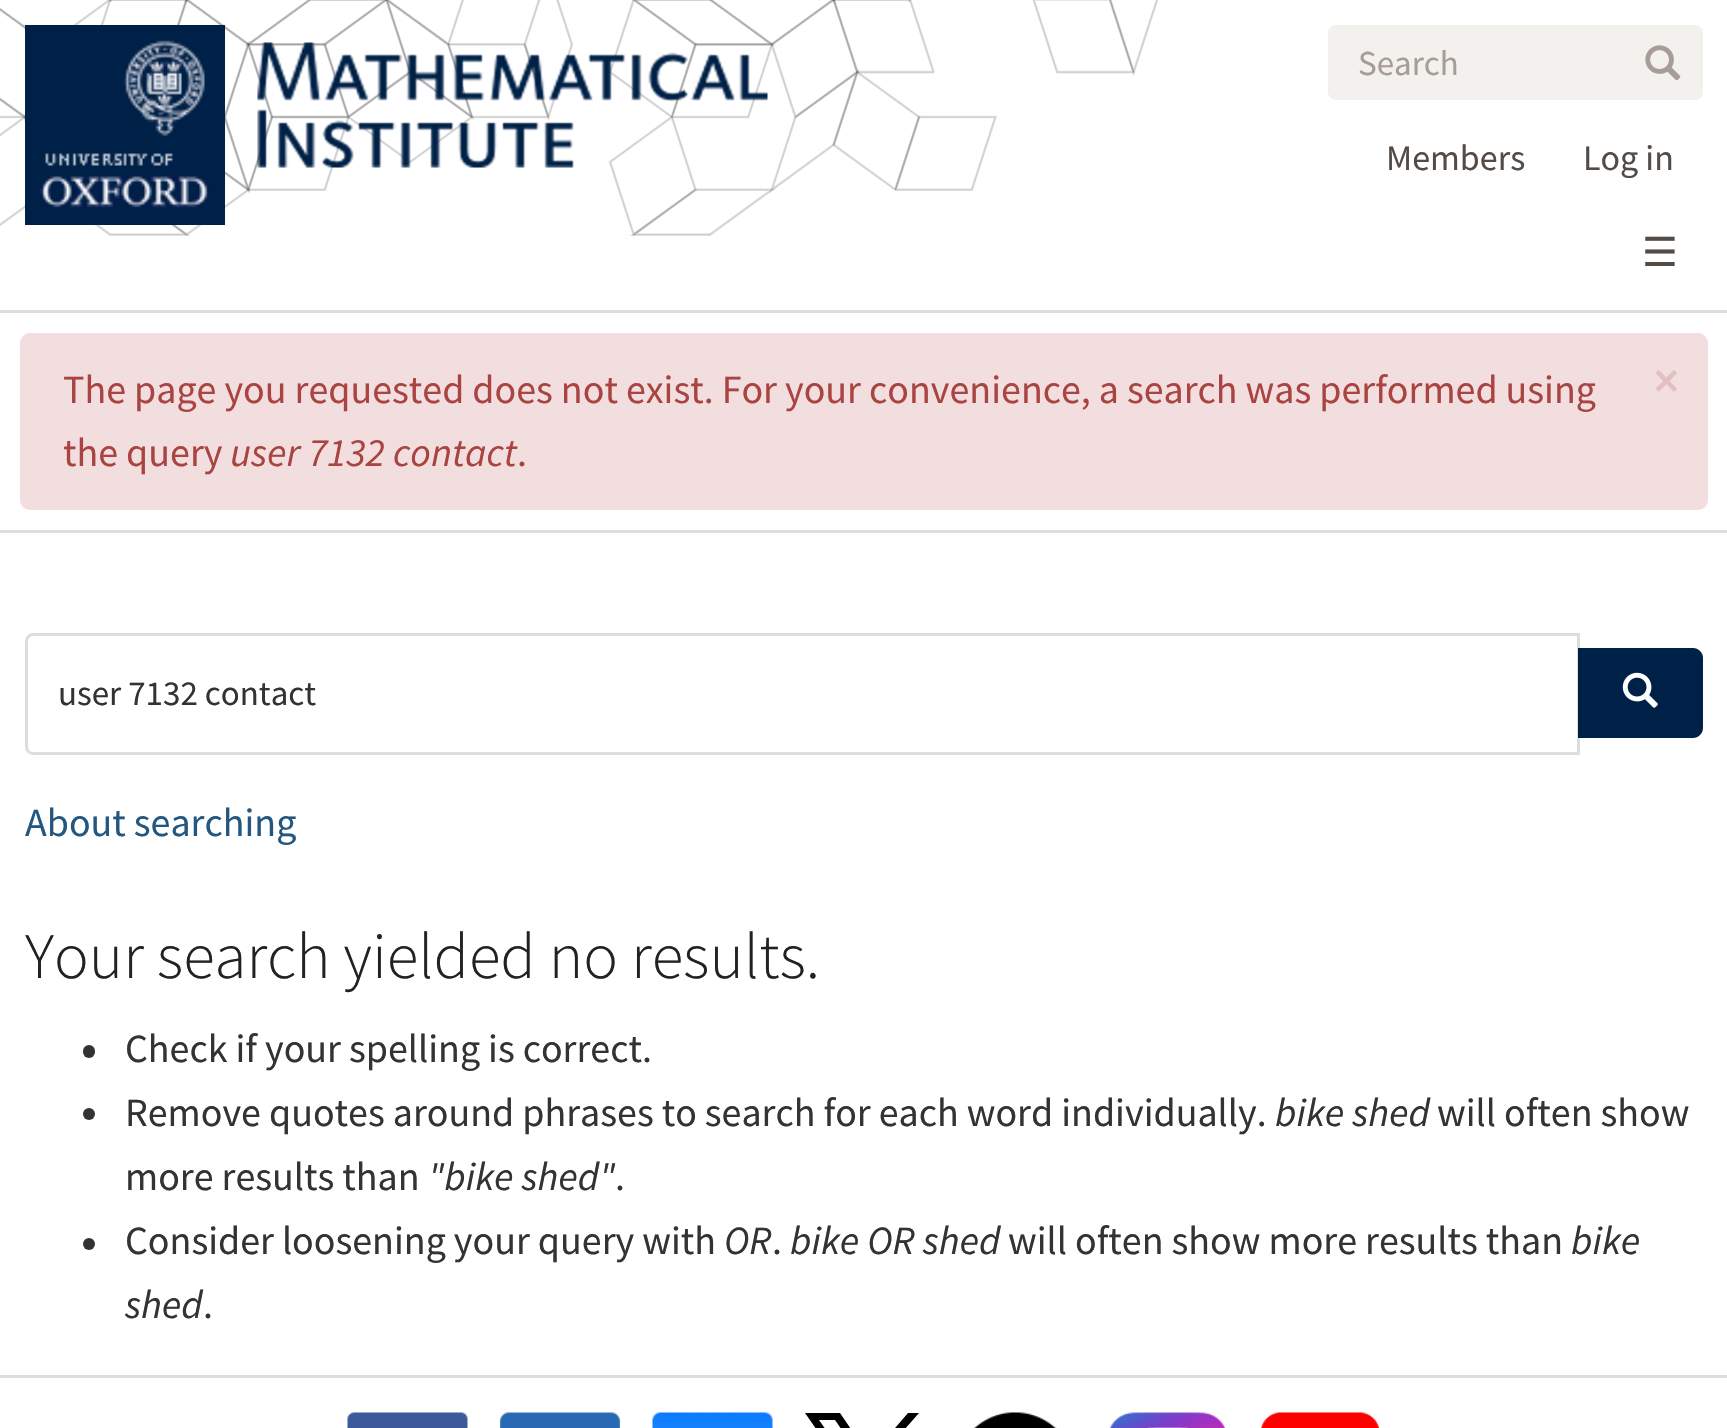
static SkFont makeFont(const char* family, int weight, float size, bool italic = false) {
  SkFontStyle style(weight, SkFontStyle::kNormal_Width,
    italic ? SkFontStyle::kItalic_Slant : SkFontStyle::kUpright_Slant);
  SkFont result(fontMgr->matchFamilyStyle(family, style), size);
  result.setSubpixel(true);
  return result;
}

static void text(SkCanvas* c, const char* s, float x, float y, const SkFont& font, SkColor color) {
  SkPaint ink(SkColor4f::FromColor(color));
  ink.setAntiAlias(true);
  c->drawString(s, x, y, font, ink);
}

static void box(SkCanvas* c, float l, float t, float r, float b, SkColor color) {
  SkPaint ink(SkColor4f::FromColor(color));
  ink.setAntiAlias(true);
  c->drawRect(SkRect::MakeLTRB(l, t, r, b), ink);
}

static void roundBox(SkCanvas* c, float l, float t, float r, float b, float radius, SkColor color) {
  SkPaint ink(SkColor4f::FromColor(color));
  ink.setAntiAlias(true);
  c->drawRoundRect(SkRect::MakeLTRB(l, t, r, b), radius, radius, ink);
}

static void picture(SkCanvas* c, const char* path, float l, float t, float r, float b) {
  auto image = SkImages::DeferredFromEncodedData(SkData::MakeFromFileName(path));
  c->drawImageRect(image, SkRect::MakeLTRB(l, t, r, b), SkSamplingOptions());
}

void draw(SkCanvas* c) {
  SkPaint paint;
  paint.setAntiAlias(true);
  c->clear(0xffffffff);
  box(c, 0, 310, 1727, 313, 0xffe0ded9);
  picture(c, "img_01.png", 0, 0, 1159, 237);
  picture(c, "img_02.png", 25, 25, 225, 225);
  picture(c, "img_03.png", 257, 42, 768, 168);
  roundBox(c, 1328, 25, 1703, 100, 8, 0xfff3f1ee);
  SkFont face1 = makeFont("Source Sans Pro", 400, 35);
  text(c, "Search", 1358, 75, face1, 0xffa79d96);
  picture(c, "img_04.png", 1645, 45, 1681, 81);
  SkFont face2 = makeFont("Source Sans Pro", 400, 36);
  text(c, "Members", 1386, 170, face2, 0xff534b46);
  text(c, "Log in", 1583, 170, face2, 0xff534b46);
  SkFont face3 = makeFont("DejaVu Sans", 400, 40);
  text(c, "☰", 1642, 266, face3, 0xff534b46);
  box(c, 0, 530, 1727, 533, 0xffe0ded9);
  roundBox(c, 20, 333, 1708, 510, 10, 0xfff2dede);
  SkFont face4 = makeFont("Source Sans Pro", 400, 40);
  text(c, "The page you requested does not exist. For your convenience, a search was performed using", 63, 403, face4, 0xffa94442);
  SkFont face5 = makeFont("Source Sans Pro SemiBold", 600, 52);
  text(c, "×", 1653, 398, face5, 0xffe3bfbf);
  text(c, "the query", 63, 466, face4, 0xffa94442);
  SkFont face6 = makeFont("Source Sans Pro", 400, 40, true);
  text(c, "user 7132 contact", 230, 466, face6, 0xffa94442);
  text(c, ".", 517, 466, face4, 0xffa94442);
  paint.setStyle(SkPaint::kStroke_Style);
  paint.setStrokeWidth(3);
  paint.setColor(0xffdddddd);
  c->drawPath(SkPathBuilder().moveTo(33, 634.5f).lineTo(1578.5f, 634.5f).lineTo(1578.5f, 753.5f).lineTo(33, 753.5f).cubicTo(29.5f, 753.5f, 26.5f, 750.5f, 26.5f, 747).lineTo(26.5f, 641).cubicTo(26.5f, 637.5f, 29.5f, 634.5f, 33, 634.5f).close().detach(), paint);
  text(c, "user 7132 contact", 58, 705, face1, 0xff333333);
  paint.setStyle(SkPaint::kFill_Style);
  paint.setColor(0xff002147);
  c->drawPath(SkPathBuilder().moveTo(1578, 648).lineTo(1693, 648).cubicTo(1698.5f, 648, 1703, 652.5f, 1703, 658).lineTo(1703, 728).cubicTo(1703, 733.5f, 1698.5f, 738, 1693, 738).lineTo(1578, 738).close().detach(), paint);
  picture(c, "img_05.png", 1622, 672, 1658, 708);
  text(c, "About searching", 25, 836, face4, 0xff245780);
  SkFont face7 = makeFont("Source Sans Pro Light", 300, 65);
  text(c, "Your search yielded no results.", 25, 978, face7, 0xff222222);
  roundBox(c, 83, 1045, 95, 1058, 6, 0xff333333);
  text(c, "Check if your spelling is correct.", 125, 1062, face4, 0xff333333);
  paint.setColor(0xff333333);
  c->drawCircle(89, 1114, 6, paint);
  text(c, "Remove quotes around phrases to search for each word individually.", 125, 1126, face4, 0xff333333);
  text(c, "bike shed", 1275, 1126, face6, 0xff333333);
  text(c, "will often show", 1437, 1126, face4, 0xff333333);
  text(c, "more results than", 125, 1190, face4, 0xff333333);
  text(c, "\"bike shed\"", 428, 1190, face6, 0xff333333);
  text(c, ".", 615, 1190, face4, 0xff333333);
  c->drawCircle(89, 1244, 6, paint);
  text(c, "Consider loosening your query with", 125, 1254, face4, 0xff333333);
  text(c, "OR", 724, 1254, face6, 0xff333333);
  text(c, "bike OR shed", 790, 1254, face6, 0xff333333);
  text(c, "will often show more results than", 1008, 1254, face4, 0xff333333);
  text(c, "bike", 1571, 1254, face6, 0xff333333);
  text(c, ".", 772, 1254, face4, 0xff333333);
  text(c, "shed", 125, 1318, face6, 0xff333333);
  text(c, ".", 203, 1318, face4, 0xff333333);
  box(c, 0, 1375, 1727, 1378, 0xffe0ded9);
  picture(c, "img_06.png", 347, 1412, 468, 1428);
  picture(c, "img_07.png", 500, 1412, 620, 1428);
  picture(c, "img_08.png", 652, 1412, 773, 1428);
  paint.setColor(0xff000000);
  c->drawPath(SkPathBuilder().moveTo(875, 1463).lineTo(919, 1413).lineTo(908, 1413).lineTo(870, 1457).lineTo(840, 1413).lineTo(805, 1413).lineTo(851, 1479).lineTo(805, 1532).lineTo(815, 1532).lineTo(855, 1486).lineTo(887, 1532).lineTo(922, 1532).close().moveTo(861, 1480).lineTo(819, 1420).lineTo(835, 1420).lineTo(908, 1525).lineTo(892, 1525).close().detach(), paint);
  picture(c, "img_09.png", 973, 1412, 1057, 1428);
  picture(c, "img_10.png", 1109, 1412, 1226, 1428);
  picture(c, "img_11.png", 1261, 1412, 1380, 1428);
}
